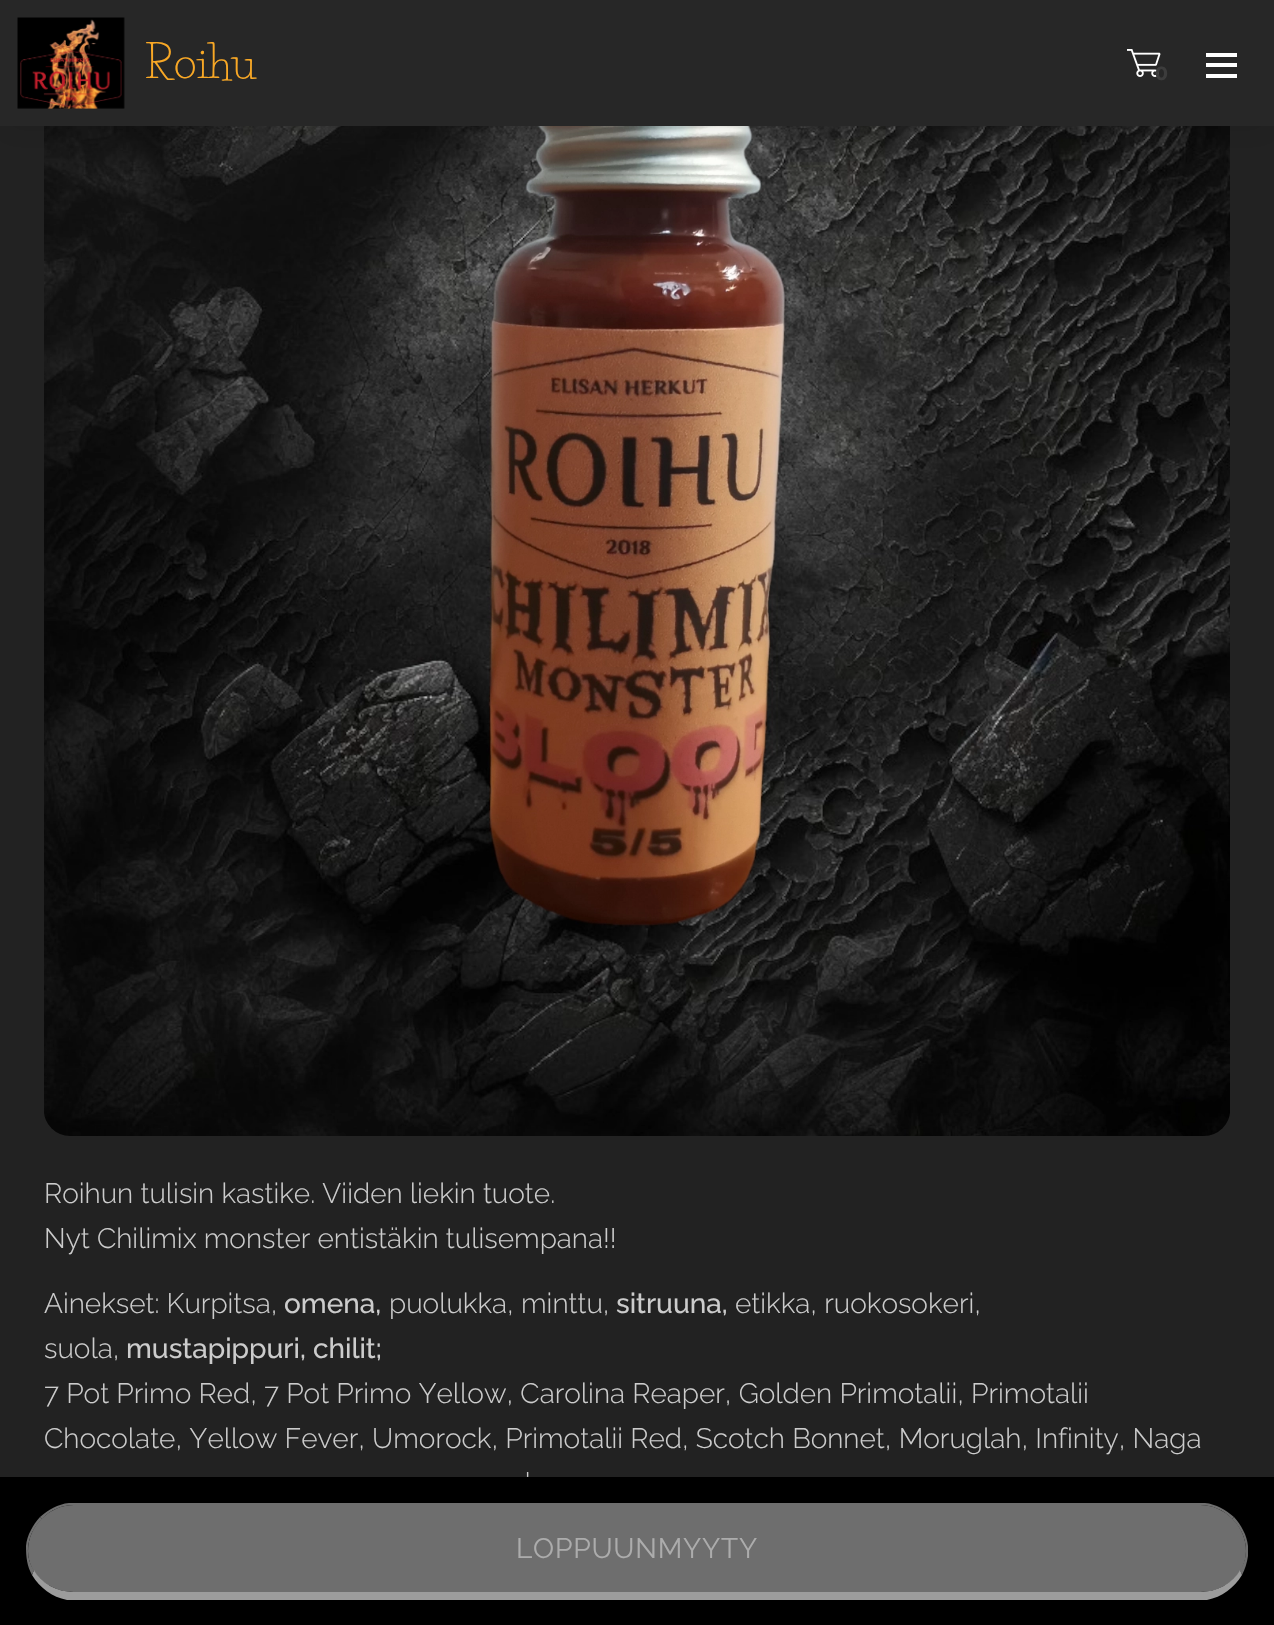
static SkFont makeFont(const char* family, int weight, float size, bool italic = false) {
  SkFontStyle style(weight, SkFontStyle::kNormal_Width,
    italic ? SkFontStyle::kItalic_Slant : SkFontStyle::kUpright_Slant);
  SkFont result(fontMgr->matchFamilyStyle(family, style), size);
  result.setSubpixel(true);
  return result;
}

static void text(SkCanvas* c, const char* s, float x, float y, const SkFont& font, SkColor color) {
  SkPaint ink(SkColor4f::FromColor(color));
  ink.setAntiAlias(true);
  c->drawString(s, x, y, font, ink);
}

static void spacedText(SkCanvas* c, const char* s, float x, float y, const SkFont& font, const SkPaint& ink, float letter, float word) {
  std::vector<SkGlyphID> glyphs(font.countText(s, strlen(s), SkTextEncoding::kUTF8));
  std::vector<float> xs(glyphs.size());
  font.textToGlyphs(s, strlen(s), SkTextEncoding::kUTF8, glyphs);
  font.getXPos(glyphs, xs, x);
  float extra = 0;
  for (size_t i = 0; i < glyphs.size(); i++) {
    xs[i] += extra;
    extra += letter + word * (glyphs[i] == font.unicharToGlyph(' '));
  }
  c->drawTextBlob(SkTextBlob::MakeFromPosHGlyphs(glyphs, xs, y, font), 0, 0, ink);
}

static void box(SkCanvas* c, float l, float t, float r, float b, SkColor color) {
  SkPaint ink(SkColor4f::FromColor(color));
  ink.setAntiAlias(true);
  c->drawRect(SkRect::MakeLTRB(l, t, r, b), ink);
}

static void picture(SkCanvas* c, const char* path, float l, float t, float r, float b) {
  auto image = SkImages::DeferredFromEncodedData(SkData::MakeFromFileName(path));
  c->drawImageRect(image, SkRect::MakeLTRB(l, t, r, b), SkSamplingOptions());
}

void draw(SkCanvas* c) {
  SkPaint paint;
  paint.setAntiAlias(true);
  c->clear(0xff222222);
  picture(c, "img_03.png", 44, 126, 1230, 1136);
  paint.setColor(0x12000000);
  paint.setMaskFilter(SkMaskFilter::MakeBlur(kNormal_SkBlurStyle, 13));
  c->drawRect(SkRect::MakeLTRB(0, 9, 1274, 135), paint);
  paint.setMaskFilter(nullptr);
  box(c, 0, 0, 1274, 126, 0xff272727);
  picture(c, "img_01.png", 17, 17, 125, 109);
  SkFont face1 = makeFont("Life Savers", 400, 44);
  text(c, "Roihu", 145, 78, face1, 0xfff9a825);
  picture(c, "img_02.png", 1127, 49, 1161, 77);
  SkFont face2 = makeFont("Montserrat", 700, 19);
  text(c, "0", 1155, 80, face2, 0xff3c3c3c);
  box(c, 1206, 63, 1237, 67, 0xffffffff);
  box(c, 1206, 53, 1237, 57, 0xffffffff);
  box(c, 1206, 74, 1237, 78, 0xffffffff);
  SkFont face3 = makeFont("Raleway", 300, 28);
  text(c, "Roihun tulisin kastike. Viiden liekin tuote.", 44, 1203, face3, 0xffcccccc);
  text(c, "Nyt Chilimix monster entistäkin tulisempana!!", 44, 1248, face3, 0xffcccccc);
  text(c, "Ainekset: Kurpitsa,", 44, 1313, face3, 0xffcccccc);
  SkFont face4 = makeFont("Raleway", 500, 28);
  text(c, "omena,", 284, 1313, face4, 0xffcccccc);
  text(c, "puolukka, minttu,", 389, 1313, face3, 0xffcccccc);
  text(c, "sitruuna,", 616, 1313, face4, 0xffcccccc);
  text(c, "etikka, ruokosokeri,", 735, 1313, face3, 0xffcccccc);
  text(c, "suola,", 44, 1358, face3, 0xffcccccc);
  text(c, "mustapippuri, chilit;", 126, 1358, face4, 0xffcccccc);
  text(c, "7 Pot Primo Red, 7 Pot Primo Yellow, Carolina Reaper, Golden Primotalii, Primotalii", 44, 1403, face3, 0xffcccccc);
  text(c, "Chocolate, Yellow Fever, Umorock, Primotalii Red, Scotch Bonnet, Moruglah, Infinity, Naga", 44, 1448, face3, 0xffcccccc);
  text(c, "'", 525, 1492, face3, 0xffcccccc);
  box(c, 0, 1477, 1274, 1625, 0xff000000);
  paint.setColor(0xff6e6e6e);
  c->drawPath(SkPathBuilder().moveTo(74, 1505).lineTo(1200, 1505).cubicTo(1225, 1505, 1246, 1526, 1246, 1551).cubicTo(1246, 1574, 1225, 1592, 1200, 1592).lineTo(74, 1592).cubicTo(49, 1592, 28, 1574, 28, 1551).cubicTo(28, 1526, 49, 1505, 74, 1505).close().detach(), paint);
  c->drawPath(SkPathBuilder().moveTo(74, 1505).cubicTo(62, 1505, 50, 1510, 42, 1519).lineTo(40, 1517).cubicTo(48, 1510, 58, 1504, 69, 1503).lineTo(1205, 1503).cubicTo(1216, 1504, 1226, 1510, 1234, 1517).lineTo(1232, 1519).cubicTo(1224, 1510, 1212, 1505, 1200, 1505).close().detach(), paint);
  c->drawPath(SkPathBuilder().moveTo(1248, 1556).cubicTo(1247, 1563, 1245, 1569, 1242, 1575).lineTo(1240, 1570).cubicTo(1251, 1554, 1246, 1532, 1232, 1519).lineTo(1234, 1517).cubicTo(1241, 1525, 1247, 1535, 1248, 1546).close().detach(), paint);
  paint.setColor(0xff9c9c9c);
  c->drawPath(SkPathBuilder().moveTo(67, 1600).cubicTo(52, 1597, 40, 1588, 32, 1575).lineTo(34, 1570).cubicTo(41, 1583, 57, 1592, 74, 1592).lineTo(1200, 1592).cubicTo(1217, 1592, 1233, 1583, 1240, 1570).lineTo(1242, 1575).cubicTo(1234, 1588, 1222, 1597, 1207, 1600).close().detach(), paint);
  paint.setColor(0xff6e6e6e);
  c->drawPath(SkPathBuilder().moveTo(26, 1546).cubicTo(27, 1535, 33, 1525, 40, 1517).lineTo(42, 1519).cubicTo(28, 1532, 23, 1554, 34, 1570).lineTo(32, 1575).cubicTo(27, 1566, 26, 1557, 26, 1546).close().detach(), paint);
  SkFont face5 = makeFont("Raleway", 400, 28);
  paint.setColor(0xffacacac);
  spacedText(c, "LOPPUUNMYYTY", 516, 1558, face5, paint, 0.8f, 0);
}
